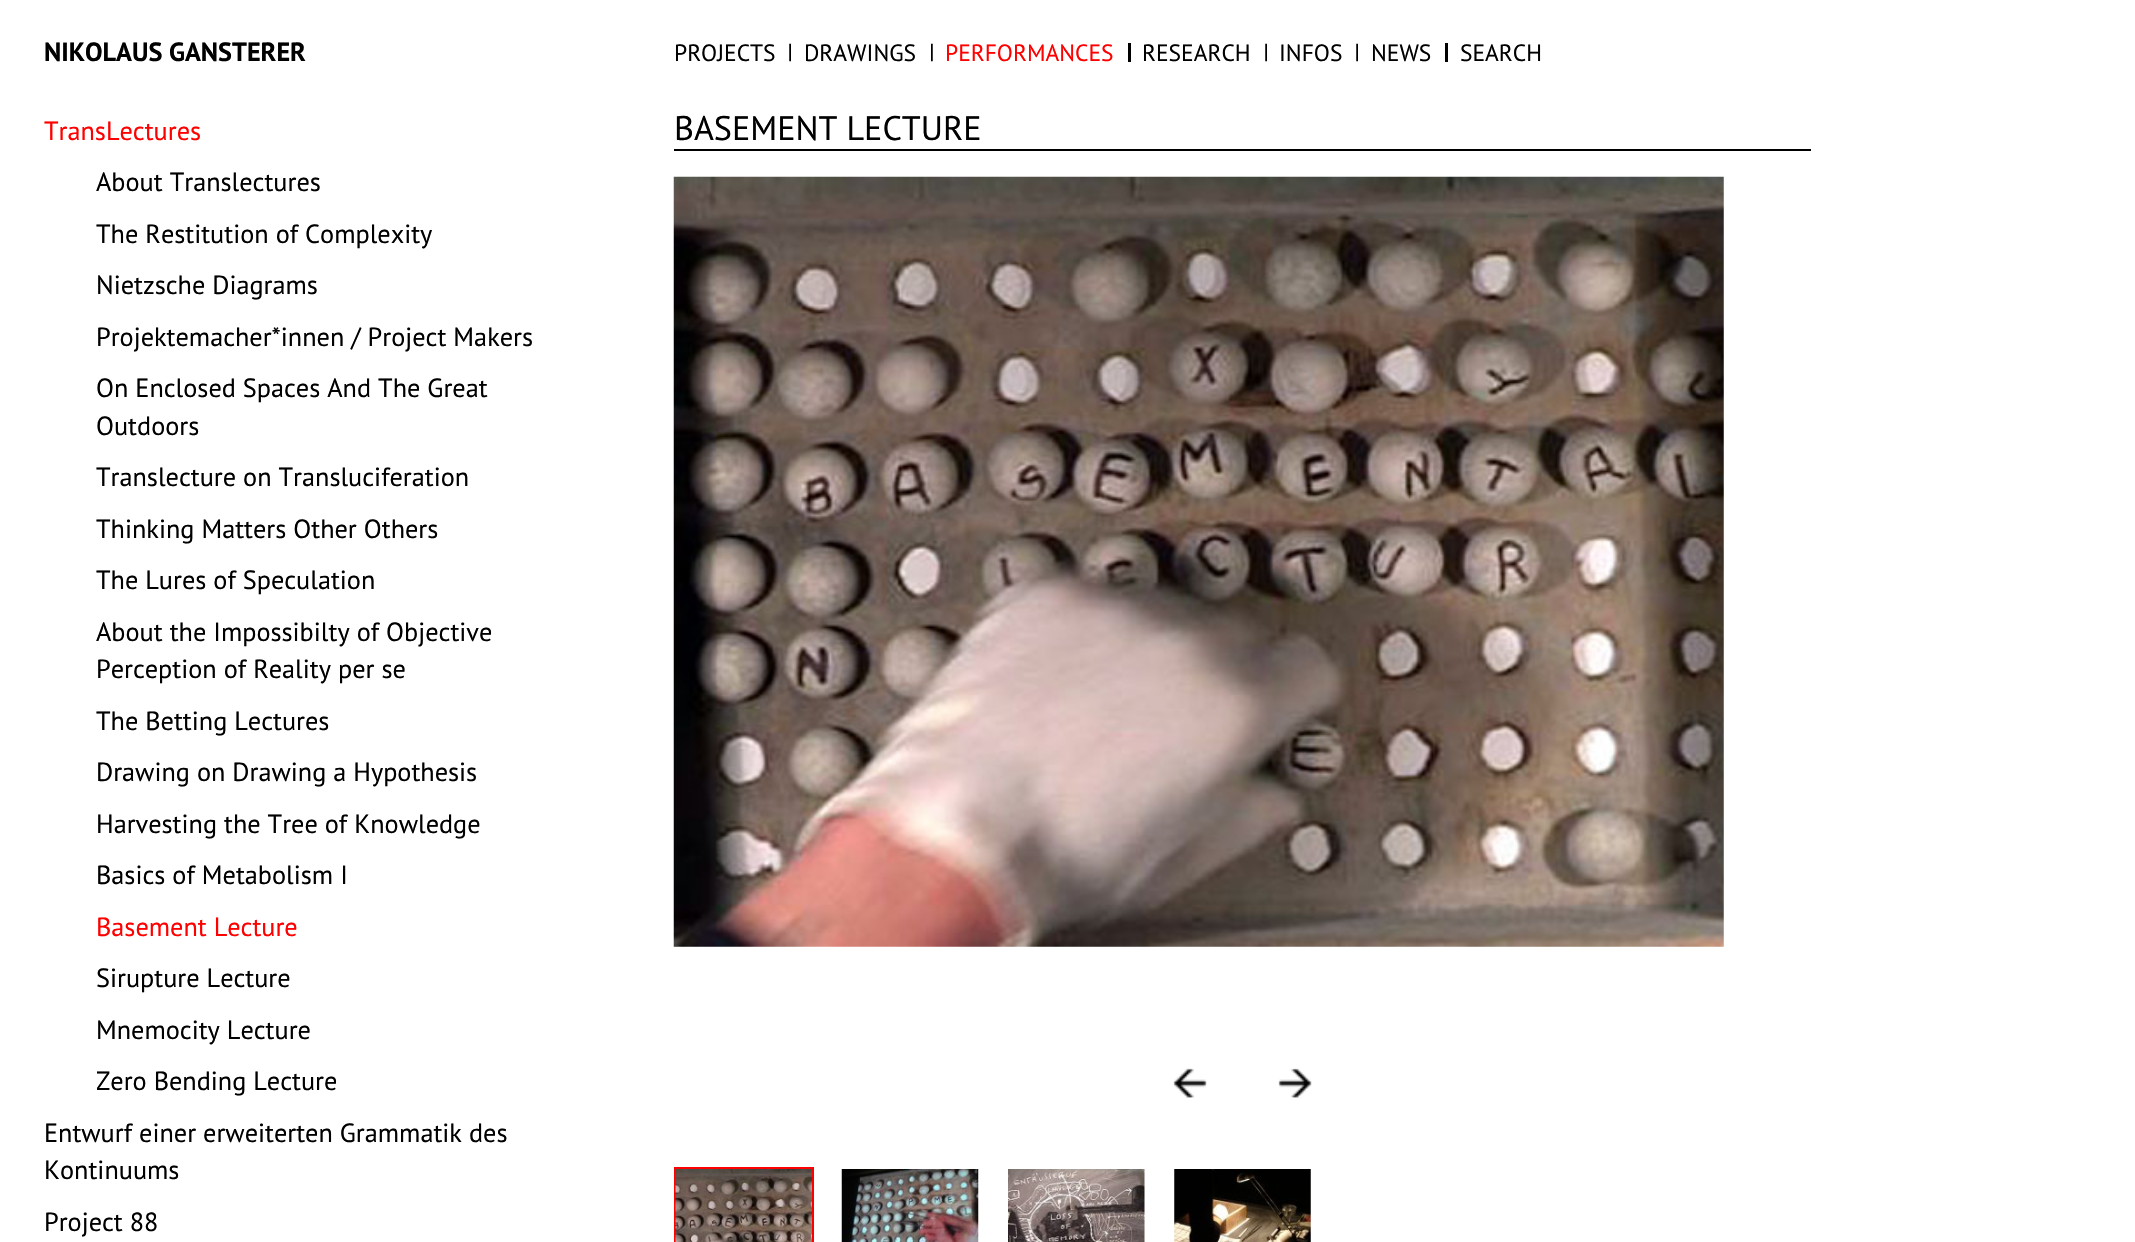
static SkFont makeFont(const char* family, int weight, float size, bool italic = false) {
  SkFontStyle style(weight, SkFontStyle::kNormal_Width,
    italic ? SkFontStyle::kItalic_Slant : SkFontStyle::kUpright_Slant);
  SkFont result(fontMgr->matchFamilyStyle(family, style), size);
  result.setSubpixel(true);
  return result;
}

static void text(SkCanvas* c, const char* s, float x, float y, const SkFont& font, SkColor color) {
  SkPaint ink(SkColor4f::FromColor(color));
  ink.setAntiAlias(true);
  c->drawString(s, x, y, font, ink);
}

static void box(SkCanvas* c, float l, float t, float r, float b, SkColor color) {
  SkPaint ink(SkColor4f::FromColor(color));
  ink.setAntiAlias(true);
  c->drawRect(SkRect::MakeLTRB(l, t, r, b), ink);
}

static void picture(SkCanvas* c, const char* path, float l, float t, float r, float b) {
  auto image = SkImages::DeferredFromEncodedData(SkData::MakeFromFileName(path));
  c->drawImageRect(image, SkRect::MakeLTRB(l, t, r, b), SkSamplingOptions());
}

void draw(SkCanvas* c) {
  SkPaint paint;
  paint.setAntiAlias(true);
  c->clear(0xffffffff);
  SkFont face1 = makeFont("PT Sans", 700, 26.25f);
  text(c, "NIKOLAUS GANSTERER", 44, 61, face1, 0xff000000);
  SkFont face2 = makeFont("PT Sans", 400, 23.5f);
  text(c, "PROJECTS", 674, 61, face2, 0xff000000);
  picture(c, "img_01.png", 789, 43, 791, 62);
  text(c, "DRAWINGS", 804, 61, face2, 0xff000000);
  picture(c, "img_02.png", 931, 43, 933, 62);
  text(c, "PERFORMANCES", 945, 61, face2, 0xffff0000);
  box(c, 1128, 43, 1131, 62, 0xff000000);
  text(c, "RESEARCH", 1142, 61, face2, 0xff000000);
  picture(c, "img_01.png", 1265, 43, 1267, 62);
  text(c, "INFOS", 1279, 61, face2, 0xff000000);
  picture(c, "img_01.png", 1356, 43, 1358, 62);
  text(c, "NEWS", 1371, 61, face2, 0xff000000);
  box(c, 1445, 43, 1448, 62, 0xff000000);
  text(c, "SEARCH", 1460, 61, face2, 0xff000000);
  SkFont face3 = makeFont("PT Sans", 400, 26.25f);
  text(c, "TransLectures", 44, 140, face3, 0xffff0000);
  text(c, "About Translectures", 96, 191, face3, 0xff000000);
  text(c, "The Restitution of Complexity", 96, 243, face3, 0xff000000);
  text(c, "Nietzsche Diagrams", 96, 294, face3, 0xff000000);
  text(c, "Projektemacher*innen / Project Makers", 96, 346, face3, 0xff000000);
  text(c, "On Enclosed Spaces And The Great", 96, 397, face3, 0xff000000);
  text(c, "Outdoors", 96, 435, face3, 0xff000000);
  text(c, "Translecture on Transluciferation", 96, 486, face3, 0xff000000);
  text(c, "Thinking Matters Other Others", 96, 538, face3, 0xff000000);
  text(c, "The Lures of Speculation", 96, 589, face3, 0xff000000);
  text(c, "About the Impossibilty of Objective", 96, 641, face3, 0xff000000);
  text(c, "Perception of Reality per se", 96, 678, face3, 0xff000000);
  text(c, "The Betting Lectures", 96, 730, face3, 0xff000000);
  text(c, "Drawing on Drawing a Hypothesis", 96, 781, face3, 0xff000000);
  text(c, "Harvesting the Tree of Knowledge", 96, 833, face3, 0xff000000);
  text(c, "Basics of Metabolism I", 96, 884, face3, 0xff000000);
  text(c, "Basement Lecture", 96, 936, face3, 0xffff0000);
  text(c, "Sirupture Lecture", 96, 987, face3, 0xff000000);
  text(c, "Mnemocity Lecture", 96, 1039, face3, 0xff000000);
  text(c, "Zero Bending Lecture", 96, 1090, face3, 0xff000000);
  text(c, "Entwurf einer erweiterten Grammatik des", 44, 1142, face3, 0xff000000);
  text(c, "Kontinuums", 44, 1179, face3, 0xff000000);
  text(c, "Project 88", 44, 1231, face3, 0xff000000);
  box(c, 674, 149, 1811, 151, 0xff000000);
  SkFont face4 = makeFont("PT Sans", 400, 34.1f);
  text(c, "BASEMENT LECTURE", 674, 140, face4, 0xff000000);
  picture(c, "img_03.png", 673, 176, 1724, 947);
  picture(c, "img_04.png", 1173, 1068, 1207, 1098);
  picture(c, "img_05.png", 1278, 1068, 1312, 1098);
  paint.setStyle(SkPaint::kStroke_Style);
  paint.setStrokeWidth(2);
  paint.setColor(0xffff0000);
  c->drawRect(SkRect::MakeLTRB(675, 1168, 813, 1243), paint);
  picture(c, "img_06.png", 675, 1169, 812, 1242);
  picture(c, "img_07.png", 841, 1169, 979, 1242);
  picture(c, "img_08.png", 1008, 1169, 1145, 1242);
  picture(c, "img_09.png", 1174, 1169, 1311, 1242);
}
